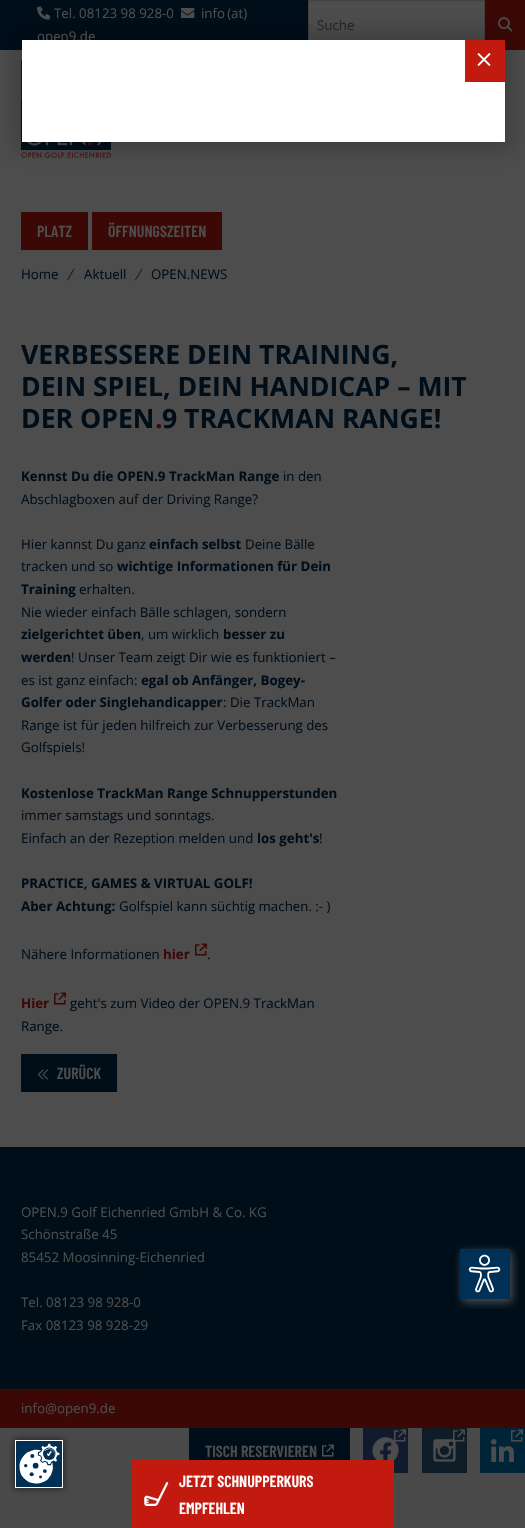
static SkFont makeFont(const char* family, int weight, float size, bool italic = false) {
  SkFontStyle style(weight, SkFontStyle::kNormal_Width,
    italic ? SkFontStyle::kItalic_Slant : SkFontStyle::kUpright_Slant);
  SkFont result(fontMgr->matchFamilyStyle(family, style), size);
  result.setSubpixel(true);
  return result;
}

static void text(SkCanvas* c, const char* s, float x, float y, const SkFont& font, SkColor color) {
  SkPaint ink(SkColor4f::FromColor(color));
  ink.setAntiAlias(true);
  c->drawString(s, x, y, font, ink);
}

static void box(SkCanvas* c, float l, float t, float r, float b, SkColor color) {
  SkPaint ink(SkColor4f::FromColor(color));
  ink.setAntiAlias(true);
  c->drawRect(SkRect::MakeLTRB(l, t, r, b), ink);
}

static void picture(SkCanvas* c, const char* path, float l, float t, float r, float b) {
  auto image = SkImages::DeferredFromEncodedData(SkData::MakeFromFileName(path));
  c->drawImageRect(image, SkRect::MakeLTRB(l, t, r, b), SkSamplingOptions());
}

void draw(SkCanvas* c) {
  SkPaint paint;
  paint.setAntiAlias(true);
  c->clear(0xff4d4d4d);
  box(c, 0, 0, 308, 50, 0xff000e1a);
  picture(c, "img_02.png", 37, 6, 51, 20);
  picture(c, "img_03.png", 181, 8, 195, 18);
  paint.setStyle(SkPaint::kStroke_Style);
  paint.setStrokeWidth(1);
  paint.setColor(0xff424242);
  c->drawRect(SkRect::MakeLTRB(308.5f, 0.5f, 484.5f, 49.5f), paint);
  box(c, 485, 0, 525, 50, 0xff3b0805);
  picture(c, "img_04.png", 498, 17, 513, 32);
  picture(c, "img_05.png", 21, 60, 111, 158);
  paint.setStyle(SkPaint::kFill_Style);
  paint.setColor(0x33000000);
  paint.setMaskFilter(SkMaskFilter::MakeBlur(kNormal_SkBlurStyle, 10));
  c->drawRect(SkRect::MakeLTRB(14, 32, 513, 150), paint);
  paint.setMaskFilter(nullptr);
  SkFont face1 = makeFont("Open Sans", 400, 13.3f);
  text(c, "open9.de", 37, 41, face1, 0xff4d4d4d);
  box(c, 22, 40, 505, 142, 0xffffffff);
  box(c, 465, 40, 505, 82, 0xffc31a10);
  picture(c, "img_01.png", 477, 53, 491, 66);
  text(c, "Tel. 08123 98 928-0", 54, 18, face1, 0xff4d4d4d);
  text(c, "info (at)", 201, 18, face1, 0xff4d4d4d);
  text(c, "Suche", 317, 30, face1, 0xff232323);
  box(c, 21, 212, 88, 250, 0xff3b0805);
  SkFont face2 = makeFont("Barlow Condensed", 600, 16, true);
  text(c, "PLATZ", 37, 237, face2, 0xff4d4d4d);
  box(c, 92, 212, 222, 250, 0xff3b0805);
  text(c, "ÖFFNUNGSZEITEN", 108, 237, face2, 0xff4d4d4d);
  text(c, "Home", 21, 279, face1, 0xff000e1a);
  picture(c, "img_06.png", 67, 268, 75, 281);
  text(c, "Aktuell", 84, 279, face1, 0xff000e1a);
  picture(c, "img_06.png", 135, 268, 143, 281);
  text(c, "OPEN.NEWS", 151, 279, face1, 0xff000e1a);
  SkFont face3 = makeFont("Open Sans", 700, 26.6f);
  text(c, "VERBESSERE DEIN TRAINING,", 21, 364, face3, 0xff000e1a);
  text(c, "DEIN SPIEL, DEIN HANDICAP – MIT", 21, 396, face3, 0xff000e1a);
  text(c, "DER OPEN", 21, 428, face3, 0xff000e1a);
  text(c, ".", 155, 428, face3, 0xff3b0805);
  text(c, "9 TRACKMAN RANGE!", 162, 428, face3, 0xff000e1a);
  SkFont face4 = makeFont("Open Sans", 700, 13.3f);
  text(c, "Kennst Du die OPEN.9 TrackMan Range", 21, 481, face4, 0xff000e1a);
  text(c, "in den", 283, 481, face1, 0xff000e1a);
  text(c, "Abschlagboxen auf der Driving Range?", 21, 504, face1, 0xff000e1a);
  text(c, "Hier kannst Du ganz", 21, 549, face1, 0xff000e1a);
  text(c, "einfach selbst", 149, 549, face4, 0xff000e1a);
  text(c, "Deine Bälle", 245, 549, face1, 0xff000e1a);
  text(c, "tracken und so", 21, 571, face1, 0xff000e1a);
  text(c, "wichtige Informationen für Dein", 117, 571, face4, 0xff000e1a);
  text(c, "Training", 21, 594, face4, 0xff000e1a);
  text(c, "erhalten.", 79, 594, face1, 0xff000e1a);
  text(c, "Nie wieder einfach Bälle schlagen, sondern", 21, 617, face1, 0xff000e1a);
  text(c, "zielgerichtet üben", 21, 639, face4, 0xff000e1a);
  text(c, ", um wirklich", 141, 639, face1, 0xff000e1a);
  text(c, "besser zu", 223, 639, face4, 0xff000e1a);
  text(c, "werden", 21, 662, face4, 0xff000e1a);
  text(c, "! Unser Team zeigt Dir wie es funktioniert –", 71, 662, face1, 0xff000e1a);
  text(c, "es ist ganz einfach:", 21, 685, face1, 0xff000e1a);
  text(c, "egal ob Anfänger, Bogey-", 141, 685, face4, 0xff000e1a);
  text(c, "Golfer oder Singlehandicapper", 21, 707, face4, 0xff000e1a);
  text(c, ": Die TrackMan", 223, 707, face1, 0xff000e1a);
  text(c, "Range ist für jeden hilfreich zur Verbesserung des", 21, 730, face1, 0xff000e1a);
  text(c, "Golfspiels!", 21, 752, face1, 0xff000e1a);
  text(c, "Kostenlose TrackMan Range Schnupperstunden", 21, 798, face4, 0xff000e1a);
  text(c, "immer samstags und sonntags.", 21, 820, face1, 0xff000e1a);
  text(c, "Einfach an der Rezeption melden und", 21, 843, face1, 0xff000e1a);
  text(c, "los geht's", 257, 843, face4, 0xff000e1a);
  text(c, "!", 319, 843, face1, 0xff000e1a);
  text(c, "PRACTICE, GAMES & VIRTUAL GOLF!", 21, 888, face4, 0xff000e1a);
  text(c, "Aber Achtung:", 21, 911, face4, 0xff000e1a);
  text(c, "Golfspiel kann süchtig machen. :- )", 119, 911, face1, 0xff000e1a);
  text(c, "Nähere Informationen", 21, 959, face1, 0xff000e1a);
  text(c, "hier", 163, 959, face4, 0xff3b0805);
  picture(c, "img_07.png", 195, 943, 207, 956);
  text(c, ".", 207, 959, face1, 0xff000e1a);
  text(c, "Hier", 21, 1008, face4, 0xff3b0805);
  picture(c, "img_07.png", 54, 992, 66, 1005);
  text(c, "geht's zum Video der OPEN.9 TrackMan", 70, 1008, face1, 0xff000e1a);
  text(c, "Range.", 21, 1031, face1, 0xff000e1a);
  box(c, 21, 1054, 117, 1092, 0xff000e1a);
  picture(c, "img_08.png", 38, 1069, 48, 1080);
  text(c, "ZURÜCK", 57, 1079, face2, 0xff4d4d4d);
  box(c, 0, 1428, 480, 1473, 0xff494949);
  box(c, 0, 1147, 525, 1389, 0xff000e1a);
  text(c, "OPEN.9 Golf Eichenried GmbH & Co. KG", 21, 1217, face1, 0xff4d4d4d);
  text(c, "Schönstraße 45", 21, 1239, face1, 0xff4d4d4d);
  text(c, "85452 Moosinning-Eichenried", 21, 1262, face1, 0xff4d4d4d);
  text(c, "Tel. 08123 98 928-0", 21, 1307, face1, 0xff4d4d4d);
  text(c, "Fax 08123 98 928-29", 21, 1330, face1, 0xff4d4d4d);
  box(c, 0, 1389, 525, 1428, 0xff3b0805);
  text(c, "info@open9.de", 21, 1413, face1, 0xff4d4d4d);
  box(c, 189, 1428, 350, 1460, 0xff000e1a);
  text(c, "TISCH RESERVIEREN", 205, 1457, face2, 0xff4d4d4d);
  picture(c, "img_09.png", 322, 1444, 334, 1457);
  picture(c, "img_10.png", 363, 1428, 408, 1473);
  picture(c, "img_11.png", 394, 1429, 406, 1442);
  picture(c, "img_12.png", 422, 1428, 467, 1473);
  picture(c, "img_13.png", 453, 1429, 465, 1442);
  picture(c, "img_14.png", 480, 1428, 525, 1473);
  picture(c, "img_15.png", 511, 1429, 523, 1442);
  box(c, 0, 1473, 525, 1528, 0xff494949);
  picture(c, "img_16.png", 455, 1245, 519, 1309);
  paint.setColor(0x80000000);
  paint.setMaskFilter(SkMaskFilter::MakeBlur(kNormal_SkBlurStyle, 3));
  c->drawRect(SkRect::MakeLTRB(14, 1439, 64, 1489), paint);
  paint.setMaskFilter(nullptr);
  picture(c, "img_17.png", 16, 1441, 62, 1487);
  paint.setStyle(SkPaint::kStroke_Style);
  paint.setColor(0xffffffff);
  c->drawRect(SkRect::MakeLTRB(15.5f, 1440.5f, 62.5f, 1487.5f), paint);
  box(c, 131, 1460, 394, 1528, 0xffc31a10);
  picture(c, "img_18.png", 144, 1482, 169, 1506);
  text(c, "JETZT SCHNUPPERKURS", 179, 1487, face2, 0xffffffff);
  text(c, "EMPFEHLEN", 179, 1514, face2, 0xffffffff);
}
